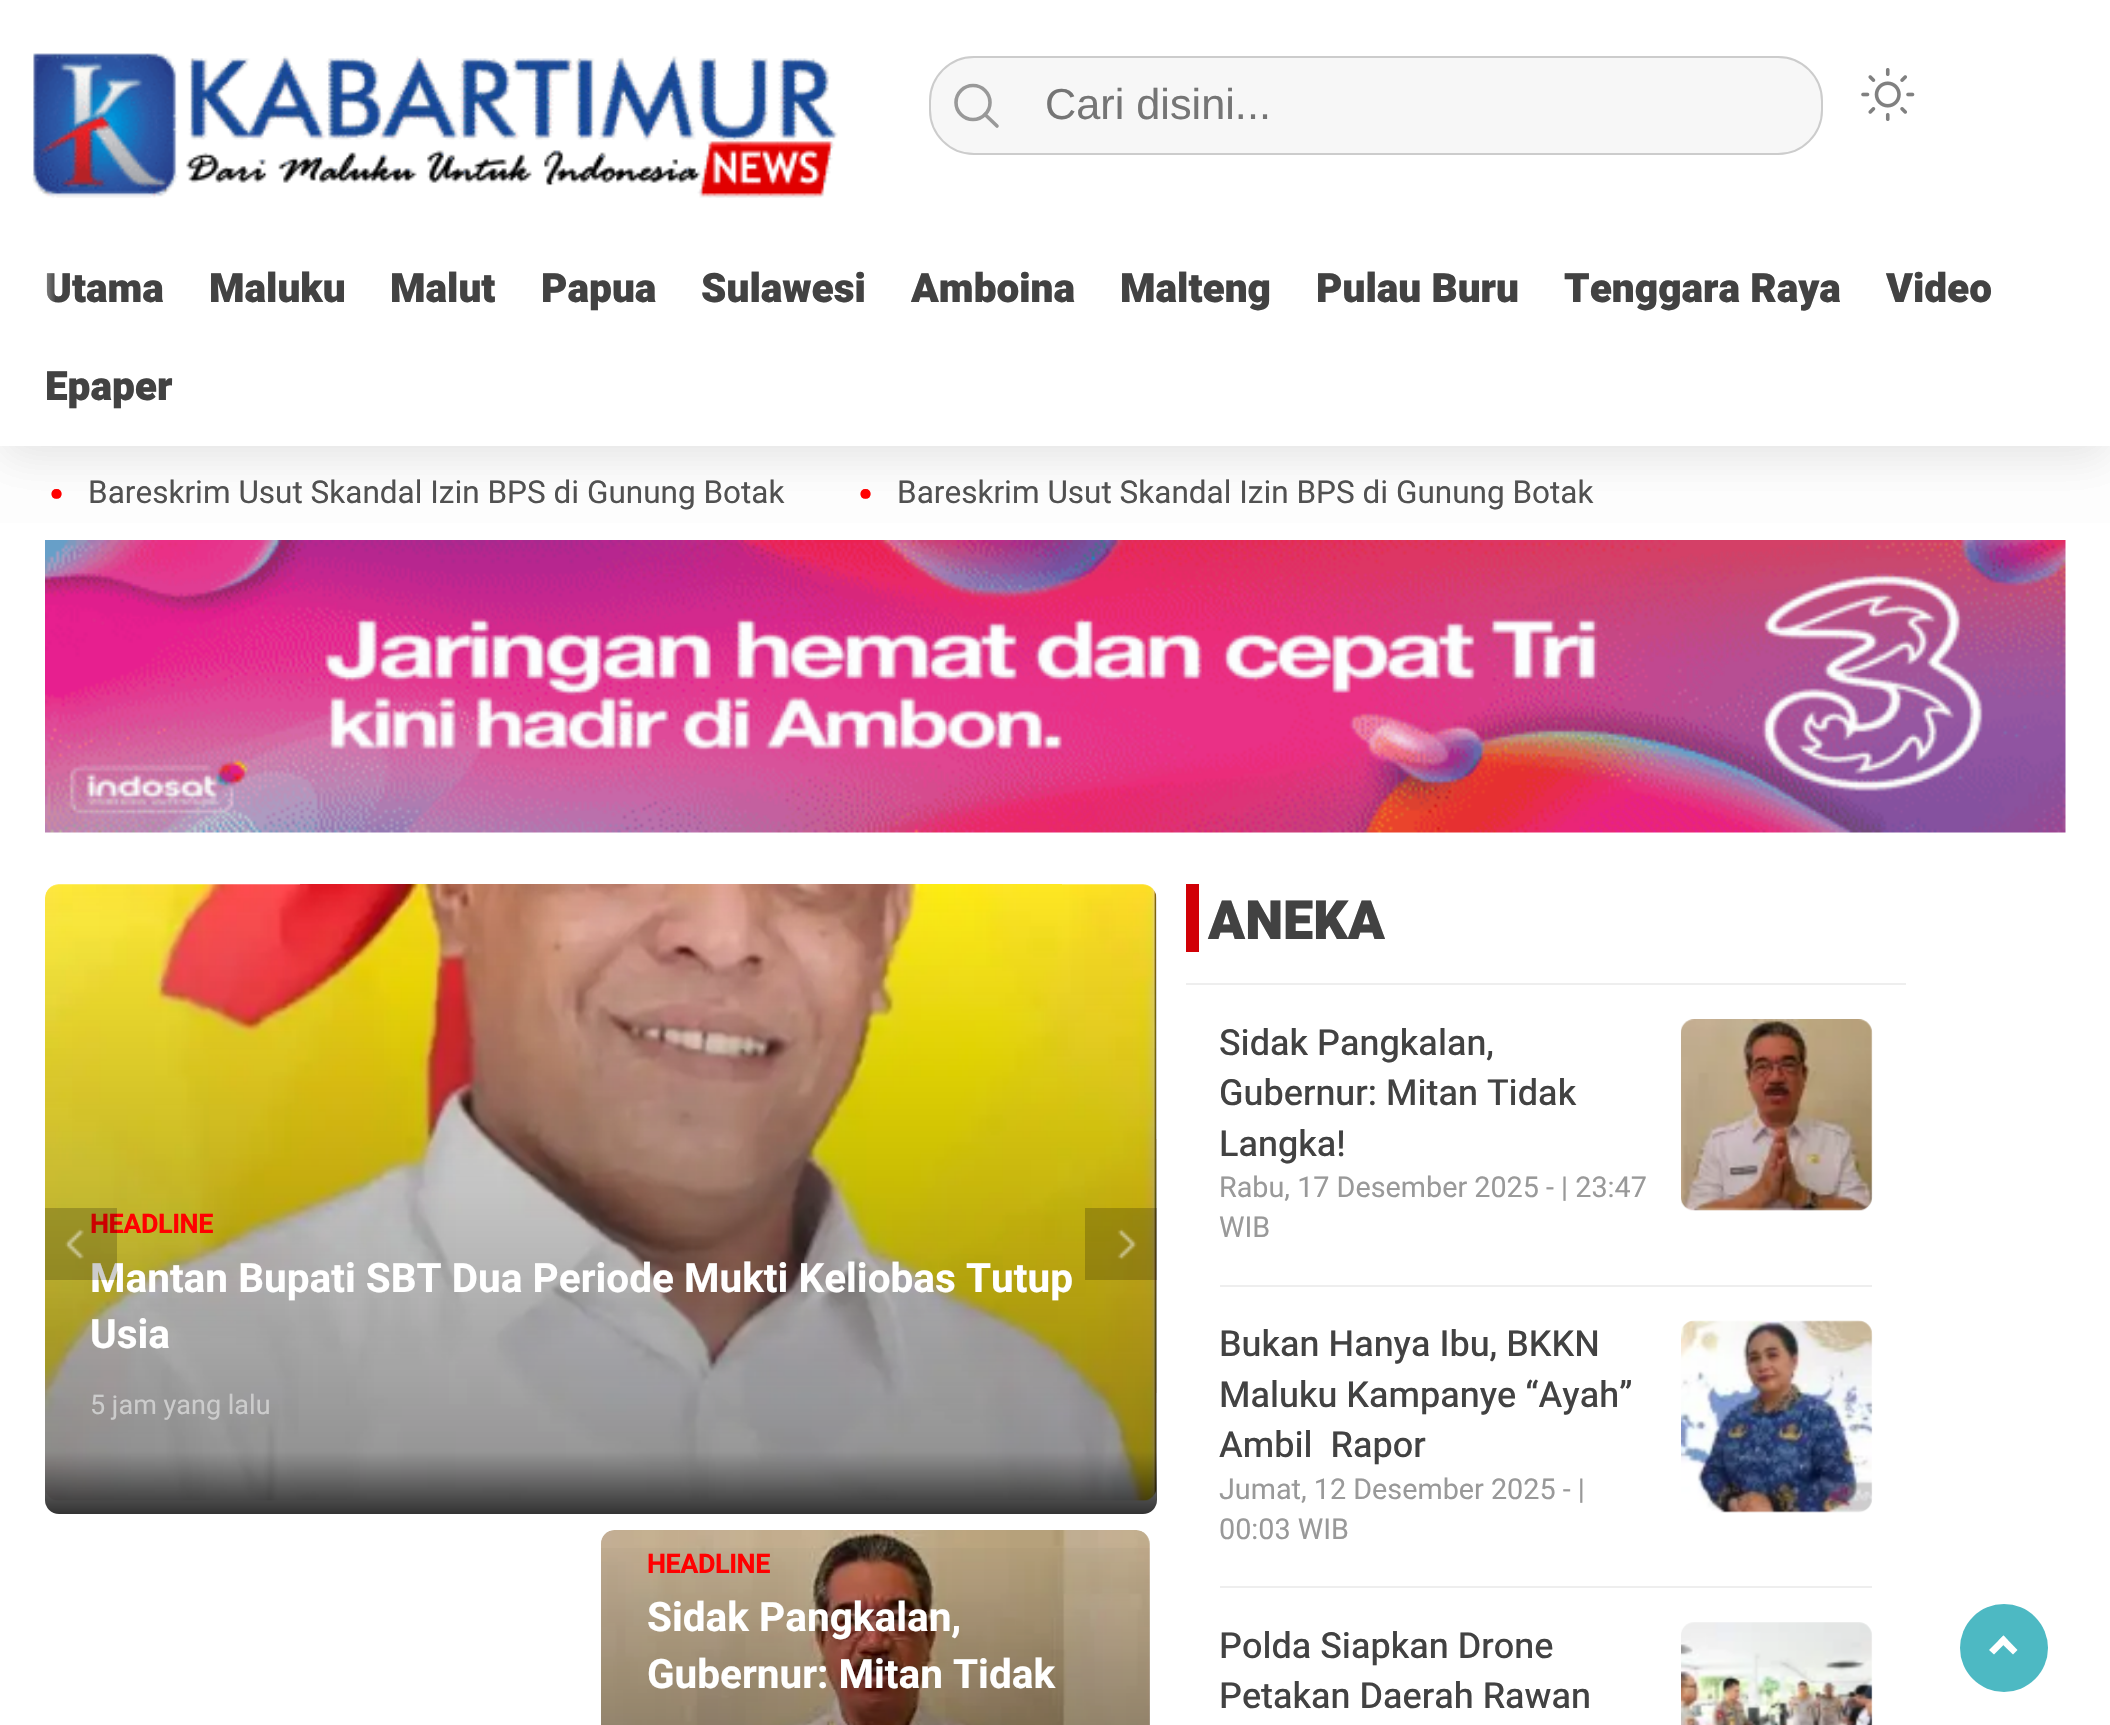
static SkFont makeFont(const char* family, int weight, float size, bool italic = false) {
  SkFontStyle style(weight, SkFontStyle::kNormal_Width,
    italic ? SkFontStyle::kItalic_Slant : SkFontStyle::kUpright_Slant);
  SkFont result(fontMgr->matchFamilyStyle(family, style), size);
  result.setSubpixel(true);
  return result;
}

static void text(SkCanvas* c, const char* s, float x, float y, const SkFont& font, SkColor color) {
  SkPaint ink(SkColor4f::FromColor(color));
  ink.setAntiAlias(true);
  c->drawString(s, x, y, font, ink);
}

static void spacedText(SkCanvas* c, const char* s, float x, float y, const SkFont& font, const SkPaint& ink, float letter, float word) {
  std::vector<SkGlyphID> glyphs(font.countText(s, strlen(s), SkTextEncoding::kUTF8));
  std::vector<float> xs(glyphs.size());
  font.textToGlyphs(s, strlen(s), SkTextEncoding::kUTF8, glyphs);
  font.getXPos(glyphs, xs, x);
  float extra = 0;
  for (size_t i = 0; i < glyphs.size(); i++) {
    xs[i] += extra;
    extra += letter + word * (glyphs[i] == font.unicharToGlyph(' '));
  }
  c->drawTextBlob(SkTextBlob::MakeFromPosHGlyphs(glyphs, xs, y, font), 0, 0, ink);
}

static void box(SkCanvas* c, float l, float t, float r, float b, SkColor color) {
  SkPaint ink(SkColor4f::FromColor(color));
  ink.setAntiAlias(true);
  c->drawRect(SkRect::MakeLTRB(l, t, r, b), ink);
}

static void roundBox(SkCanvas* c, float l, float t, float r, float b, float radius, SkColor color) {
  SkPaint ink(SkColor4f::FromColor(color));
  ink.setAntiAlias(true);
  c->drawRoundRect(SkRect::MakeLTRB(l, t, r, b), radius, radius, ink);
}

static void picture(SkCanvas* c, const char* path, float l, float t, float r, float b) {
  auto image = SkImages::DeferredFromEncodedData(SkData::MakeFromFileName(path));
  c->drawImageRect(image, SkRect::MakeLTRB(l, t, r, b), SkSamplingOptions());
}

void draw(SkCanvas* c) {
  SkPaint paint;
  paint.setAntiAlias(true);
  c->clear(0xffffffff);
  paint.setColor(0x0d000000);
  paint.setMaskFilter(SkMaskFilter::MakeBlur(kNormal_SkBlurStyle, 21.5f));
  c->drawRect(SkRect::MakeLTRB(0, 14, 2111, 459), paint);
  paint.setMaskFilter(nullptr);
  paint.setMaskFilter(SkMaskFilter::MakeBlur(kNormal_SkBlurStyle, 21.5f));
  c->drawRect(SkRect::MakeLTRB(0, 14, 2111, 459), paint);
  paint.setMaskFilter(nullptr);
  box(c, 0, 0, 2110, 446, 0xffffffff);
  SkFont face1 = makeFont("Heebo", 900, 40.5f);
  text(c, "Utama", 45, 302, face1, 0xff424242);
  {
    const SkColor colors[] = {0xffffffff, 0x00ffffff};
    const float stops[] = {0, 1};
    const SkPoint ends[] = {{0, 291}, {56, 291}};
    paint.setShader(SkGradientShader::MakeLinear(ends, colors, stops, 2, SkTileMode::kClamp));
    paint.setAlpha(255);
  }
  c->drawRect(SkRect::MakeLTRB(47, 273, 55, 302), paint);
  c->drawRect(SkRect::MakeLTRB(47, 273, 55, 302), paint);
  picture(c, "img_01.png", 32, 53, 838, 198);
  roundBox(c, 929, 56, 1823, 155, 45, 0xfff7f7f7);
  paint.setStyle(SkPaint::kStroke_Style);
  paint.setStrokeWidth(3.6f);
  paint.setShader(nullptr);
  paint.setColor(0xff999999);
  c->drawCircle(973, 102.5f, 17, paint);
  paint.setStrokeCap(SkPaint::kRound_Cap);
  paint.setStrokeJoin(SkPaint::kRound_Join);
  c->drawPath(SkPathBuilder().moveTo(997, 126).lineTo(985, 114.5f).detach(), paint);
  paint.setStrokeWidth(2);
  paint.setStrokeCap(SkPaint::kButt_Cap);
  paint.setStrokeJoin(SkPaint::kMiter_Join);
  paint.setColor(0xffcccccc);
  c->drawRoundRect(SkRect::MakeLTRB(930, 57, 1822, 154), 44, 44, paint);
  SkFont face2 = makeFont("Liberation Sans", 400, 43.25f);
  text(c, "Cari disini...", 1045, 119, face2, 0xff757575);
  picture(c, "img_02.png", 1861, 68, 1915, 121);
  text(c, "Maluku", 209, 302, face1, 0xff424242);
  text(c, "Malut", 390, 302, face1, 0xff424242);
  text(c, "Papua", 541, 302, face1, 0xff424242);
  text(c, "Sulawesi", 701, 302, face1, 0xff424242);
  text(c, "Amboina", 911, 302, face1, 0xff424242);
  text(c, "Malteng", 1120, 302, face1, 0xff424242);
  text(c, "Pulau Buru", 1316, 302, face1, 0xff424242);
  text(c, "Tenggara Raya", 1564, 302, face1, 0xff424242);
  text(c, "Video", 1886, 302, face1, 0xff424242);
  text(c, "Epaper", 45, 400, face1, 0xff424242);
  SkFont face3 = makeFont("Heebo", 400, 90);
  text(c, "·", 45, 526, face3, 0xffff0000);
  SkFont face4 = makeFont("Heebo", 400, 31.5f);
  text(c, "Bareskrim Usut Skandal Izin BPS di Gunung Botak", 88, 503, face4, 0xff515151);
  text(c, "·", 854, 526, face3, 0xffff0000);
  text(c, "Bareskrim Usut Skandal Izin BPS di Gunung Botak", 897, 503, face4, 0xff515151);
  picture(c, "img_03.png", 45, 540, 2066, 833);
  picture(c, "img_06.png", 45, 884, 1157, 1501);
  paint.setStyle(SkPaint::kFill_Style);
  {
    const SkColor colors[] = {0x00000000, 0x66000000, 0xcc000000};
    const float stops[] = {0, 0.9f, 1};
    const SkPoint ends[] = {{601, 884}, {601, 1514}};
    paint.setShader(SkGradientShader::MakeLinear(ends, colors, stops, 3, SkTileMode::kClamp));
    paint.setAlpha(255);
  }
  c->drawRoundRect(SkRect::MakeLTRB(45, 884, 1157, 1514), 14, 14, paint);
  SkFont face5 = makeFont("Heebo", 700, 27);
  paint.setShader(nullptr);
  paint.setColor(0xffff0000);
  spacedText(c, "HEADLINE", 90, 1233, face5, paint, -0.5f, 0);
  SkFont face6 = makeFont("Heebo", 700, 40.5f);
  text(c, "Mantan Bupati SBT Dua Periode Mukti Keliobas Tutup", 90, 1292, face6, 0xffffffff);
  box(c, 45, 1208, 117, 1280, 0x33000000);
  picture(c, "img_04.png", 65, 1228, 84, 1260);
  box(c, 1085, 1208, 1157, 1280, 0x33000000);
  picture(c, "img_05.png", 1117, 1228, 1137, 1260);
  text(c, "Usia", 90, 1348, face6, 0xffffffff);
  SkFont face7 = makeFont("Heebo", 400, 27);
  text(c, "5 jam yang lalu", 90, 1414, face7, 0xffcccccc);
  picture(c, "img_07.png", 601, 1530, 1150, 1725);
  {
    const SkColor colors[] = {0x00000000, 0x66000000, 0xcc000000};
    const float stops[] = {0, 0.9f, 1};
    const SkPoint ends[] = {{875, 1530}, {875, 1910}};
    paint.setShader(SkGradientShader::MakeLinear(ends, colors, stops, 3, SkTileMode::kClamp));
    paint.setAlpha(255);
  }
  c->drawRect(SkRect::MakeLTRB(601, 1548, 1150, 1725), paint);
  paint.setShader(nullptr);
  paint.setColor(0xffff0000);
  spacedText(c, "HEADLINE", 647, 1573, face5, paint, -0.5f, 0);
  text(c, "Sidak Pangkalan,", 647, 1631, face6, 0xffffffff);
  text(c, "Gubernur: Mitan Tidak", 647, 1688, face6, 0xffffffff);
  box(c, 1186, 983, 1906, 985, 0xffeeeeee);
  box(c, 1186, 884, 1199, 952, 0xffd10006);
  SkFont face8 = makeFont("Heebo", 900, 54);
  text(c, "ANEKA", 1208, 939, face8, 0xff424242);
  box(c, 1220, 1285, 1872, 1287, 0xffeeeeee);
  SkFont face9 = makeFont("Heebo", 500, 36);
  text(c, "Sidak Pangkalan,", 1219, 1055, face9, 0xff424242);
  picture(c, "img_08.png", 1681, 1019, 1873, 1211);
  text(c, "Gubernur: Mitan Tidak", 1219, 1105, face9, 0xff424242);
  text(c, "Langka!", 1219, 1156, face9, 0xff424242);
  SkFont face10 = makeFont("Heebo", 400, 28.75f);
  text(c, "Rabu, 17 Desember 2025 - | 23:47", 1219, 1197, face10, 0xff999999);
  text(c, "WIB", 1219, 1237, face10, 0xff999999);
  box(c, 1220, 1586, 1872, 1588, 0xffeeeeee);
  text(c, "Bukan Hanya Ibu, BKKN", 1219, 1356, face9, 0xff424242);
  picture(c, "img_09.png", 1681, 1320, 1873, 1513);
  text(c, "Maluku Kampanye “Ayah”", 1219, 1407, face9, 0xff424242);
  text(c, "Ambil  Rapor", 1219, 1457, face9, 0xff424242);
  text(c, "Jumat, 12 Desember 2025 - |", 1219, 1499, face10, 0xff999999);
  text(c, "00:03 WIB", 1219, 1539, face10, 0xff999999);
  text(c, "Polda Siapkan Drone", 1219, 1658, face9, 0xff424242);
  picture(c, "img_10.png", 1681, 1622, 1873, 1725);
  text(c, "Petakan Daerah Rawan", 1219, 1708, face9, 0xff424242);
  paint.setColor(0xff4db9c3);
  c->drawCircle(2004, 1648, 44, paint);
  paint.setColor(0xffffffff);
  c->drawPath(SkPathBuilder().moveTo(1994, 1654.5f).lineTo(1989, 1650).lineTo(2003.5f, 1635.5f).lineTo(2008, 1640.5f).close().detach(), paint);
  c->drawPath(SkPathBuilder().moveTo(2013, 1654.5f).lineTo(1998.5f, 1640.5f).lineTo(2003.5f, 1635.5f).lineTo(2017.5f, 1650).close().detach(), paint);
}
